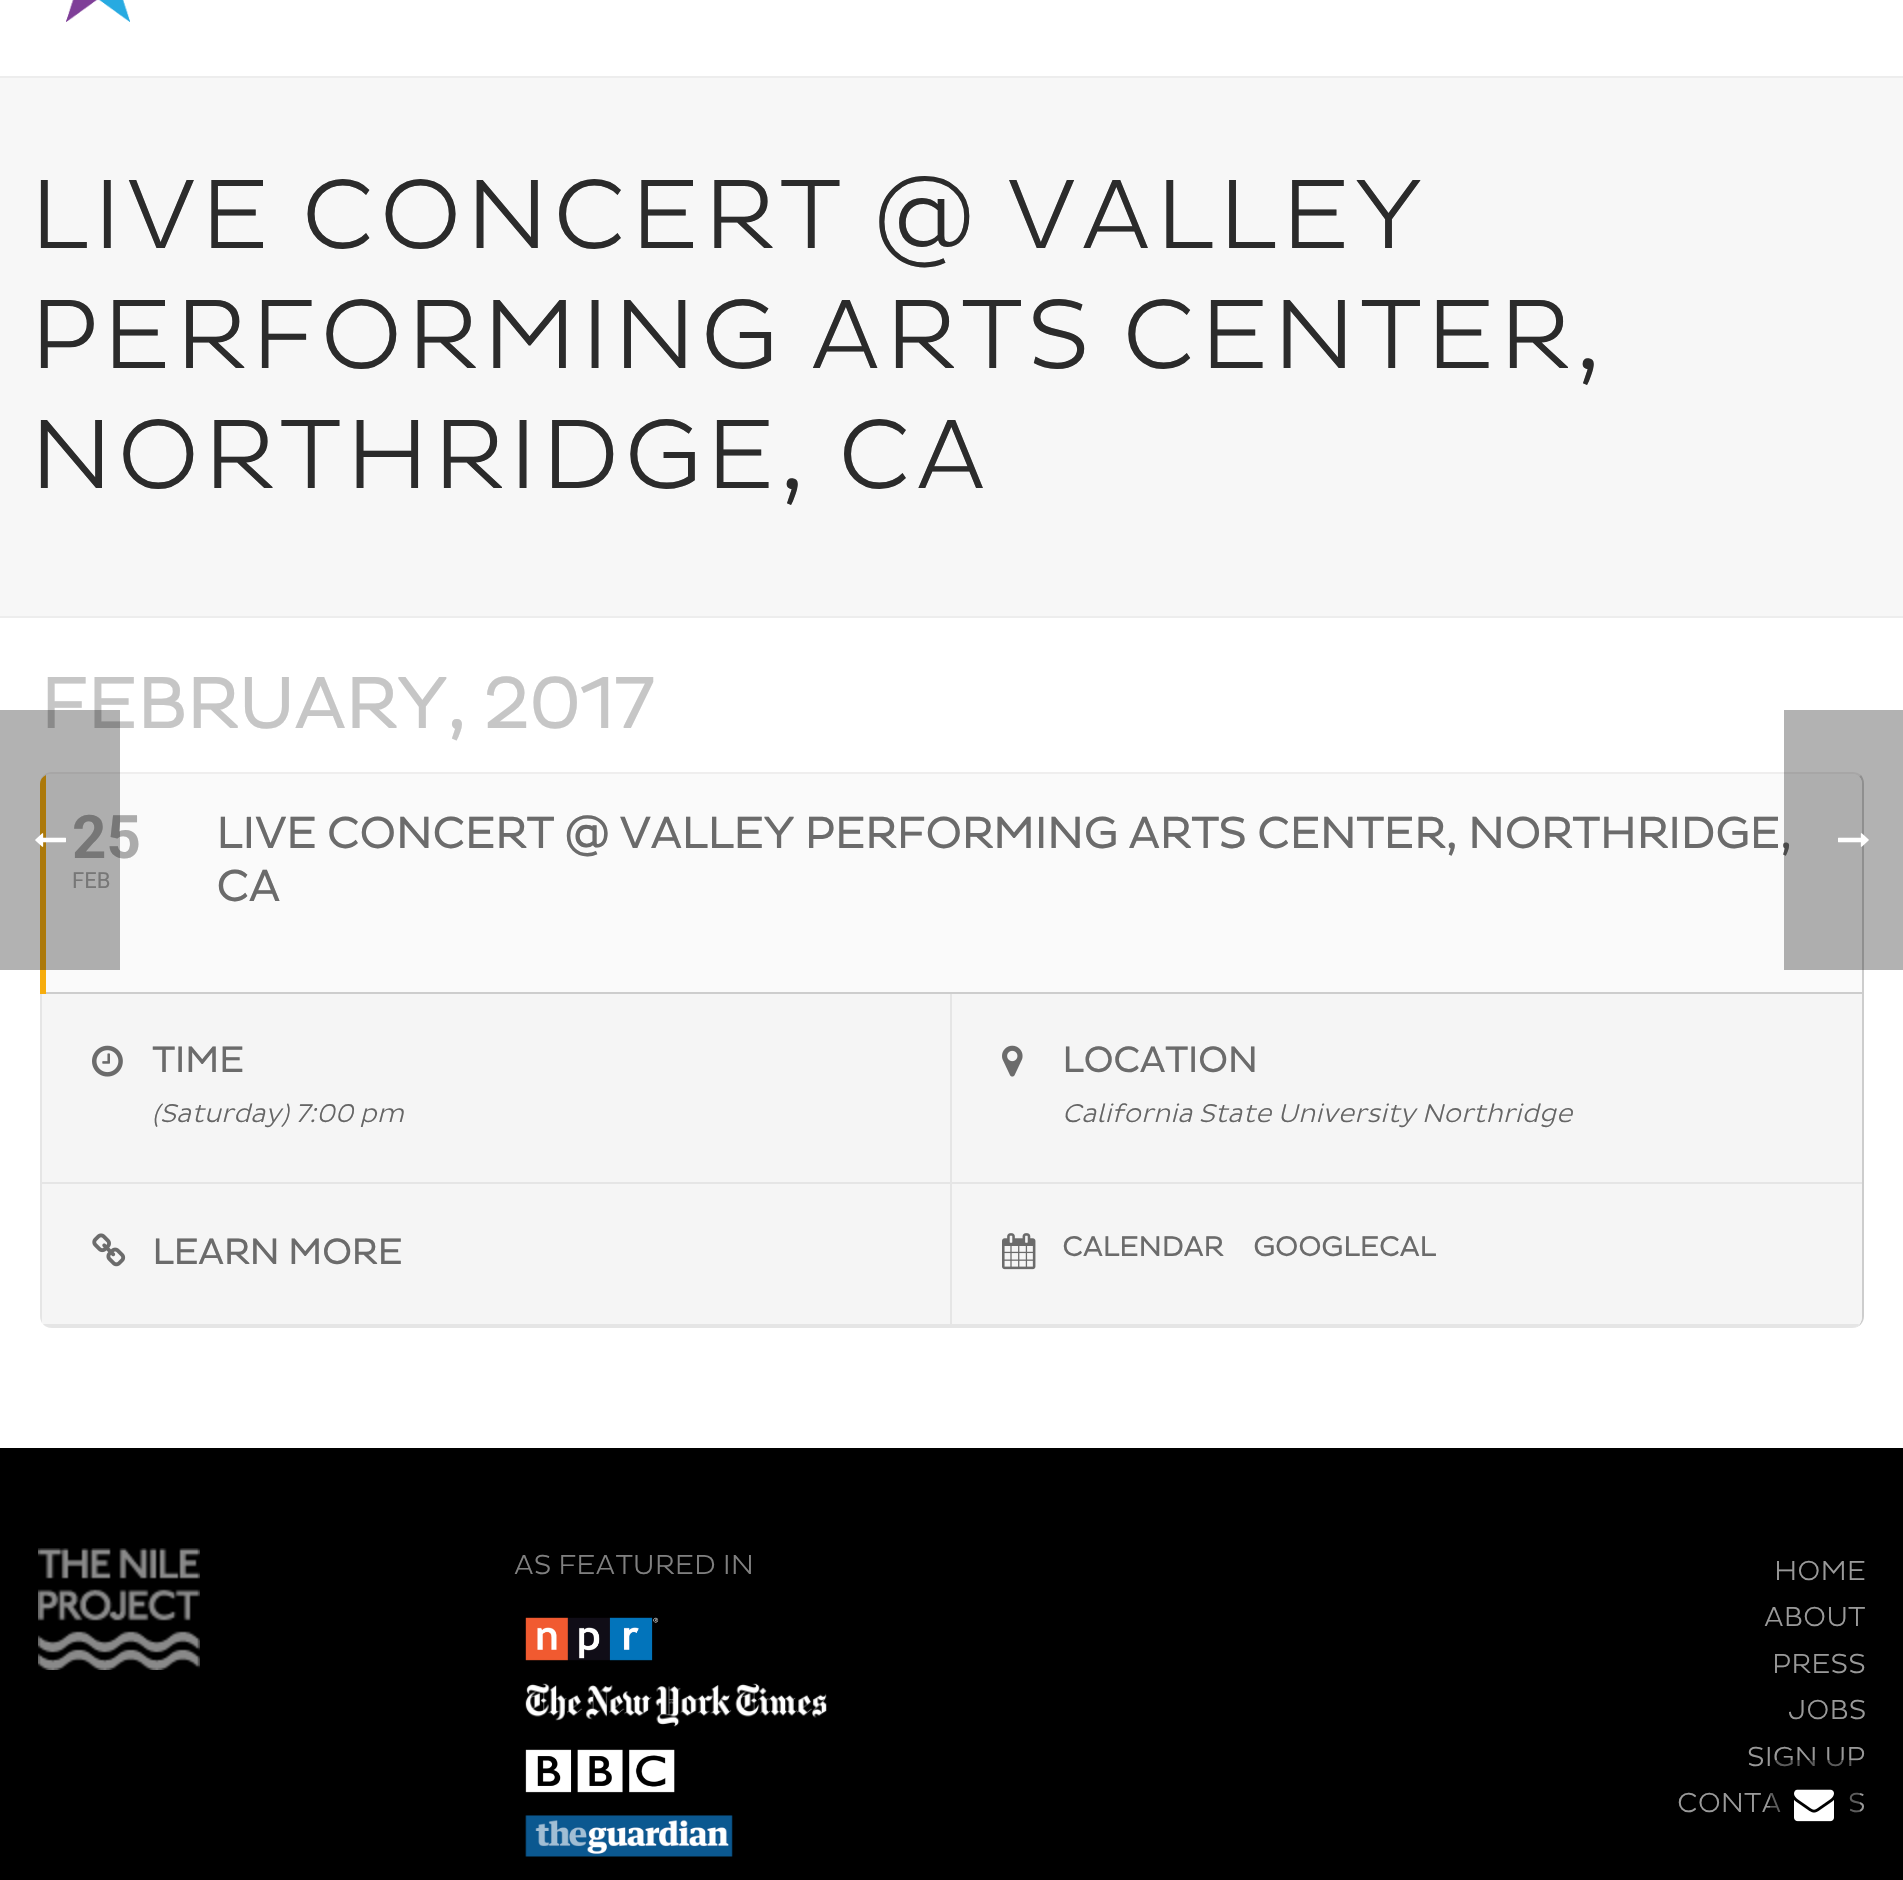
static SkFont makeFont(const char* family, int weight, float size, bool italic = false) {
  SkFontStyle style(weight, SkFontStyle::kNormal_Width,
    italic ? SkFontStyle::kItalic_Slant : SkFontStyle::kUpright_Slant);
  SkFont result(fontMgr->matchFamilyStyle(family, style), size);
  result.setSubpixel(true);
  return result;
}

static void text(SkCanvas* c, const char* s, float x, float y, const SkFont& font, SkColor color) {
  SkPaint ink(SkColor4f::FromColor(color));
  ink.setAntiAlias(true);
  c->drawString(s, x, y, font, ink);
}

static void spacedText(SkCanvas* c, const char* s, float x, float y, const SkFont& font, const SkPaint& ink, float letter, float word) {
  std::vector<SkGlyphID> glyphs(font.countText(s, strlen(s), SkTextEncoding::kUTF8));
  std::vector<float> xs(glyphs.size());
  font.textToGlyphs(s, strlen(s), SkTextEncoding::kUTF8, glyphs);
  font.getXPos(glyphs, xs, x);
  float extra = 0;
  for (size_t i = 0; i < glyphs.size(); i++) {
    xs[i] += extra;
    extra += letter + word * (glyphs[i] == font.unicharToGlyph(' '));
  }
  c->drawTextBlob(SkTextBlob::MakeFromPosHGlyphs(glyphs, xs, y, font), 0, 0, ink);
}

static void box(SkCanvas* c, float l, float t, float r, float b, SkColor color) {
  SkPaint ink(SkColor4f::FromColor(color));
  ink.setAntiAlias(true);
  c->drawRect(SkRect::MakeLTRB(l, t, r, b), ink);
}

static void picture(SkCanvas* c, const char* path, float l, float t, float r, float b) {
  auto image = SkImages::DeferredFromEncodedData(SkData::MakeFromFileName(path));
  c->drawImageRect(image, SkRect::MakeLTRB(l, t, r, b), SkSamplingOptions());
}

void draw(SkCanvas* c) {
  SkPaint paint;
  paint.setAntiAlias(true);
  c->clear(0xffffffff);
  box(c, 0, 78, 1903, 616, 0xfff7f7f7);
  box(c, 0, 616, 1903, 618, 0xffededed);
  box(c, 0, 76, 1903, 78, 0xffededed);
  picture(c, "img_01.png", 66, 0, 130, 22);
  SkFont face1 = makeFont("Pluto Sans", 300, 100);
  paint.setColor(0xff2b2b2b);
  spacedText(c, "LIVE CONCERT @ VALLEY", 30, 248, face1, paint, 4, 0);
  spacedText(c, "PERFORMING ARTS CENTER,", 30, 368, face1, paint, 4, 0);
  spacedText(c, "NORTHRIDGE, CA", 30, 488, face1, paint, 4, 0);
  SkFont face2 = makeFont("Pluto Sans", 700, 72);
  text(c, "FEBRUARY, 2017", 40, 728, face2, 0xffc6c6c6);
  paint.setColor(0xffefeeee);
  c->drawPath(SkPathBuilder().moveTo(52, 772).lineTo(1852, 772).cubicTo(1856, 772, 1858, 773, 1861, 775).lineTo(1859, 777).cubicTo(1858, 775, 1855, 774, 1852, 774).lineTo(52, 774).cubicTo(45, 774, 40, 778, 40, 784).cubicTo(40, 777, 45, 772, 52, 772).close().detach(), paint);
  paint.setColor(0xffcdcdcd);
  c->drawPath(SkPathBuilder().moveTo(1861, 775).lineTo(1859, 777).cubicTo(1861, 778, 1862, 781, 1862, 784).lineTo(1862, 1316).cubicTo(1862, 1323, 1858, 1328, 1852, 1328).cubicTo(1859, 1328, 1864, 1323, 1864, 1316).lineTo(1864, 784).cubicTo(1864, 780, 1863, 778, 1861, 775).close().detach(), paint);
  paint.setColor(0xfffafafa);
  c->drawPath(SkPathBuilder().moveTo(52, 774).cubicTo(45, 774, 40, 778, 40, 784).lineTo(40, 994).lineTo(1862, 994).lineTo(1862, 784).cubicTo(1862, 778, 1858, 774, 1852, 774).close().detach(), paint);
  paint.setColor(0xfff7ad0d);
  c->drawPath(SkPathBuilder().moveTo(46, 775).cubicTo(42, 777, 40, 780, 40, 784).lineTo(40, 994).lineTo(46, 994).close().detach(), paint);
  SkFont face3 = makeFont("Roboto", 700, 60);
  text(c, "25", 72, 858, face3, 0xffababab);
  SkFont face4 = makeFont("Roboto", 400, 22);
  text(c, "FEB", 72, 888, face4, 0xffababab);
  SkFont face5 = makeFont("Pluto Sans", 700, 44);
  text(c, "LIVE CONCERT @ VALLEY PERFORMING ARTS CENTER, NORTHRIDGE,", 216, 848, face5, 0xff6b6b6b);
  text(c, "CA", 216, 901, face5, 0xff6b6b6b);
  box(c, 46, 992, 1862, 994, 0xffcdcdcd);
  paint.setColor(0xfff5f5f5);
  c->drawPath(SkPathBuilder().moveTo(40, 994).lineTo(40, 1316).cubicTo(40, 1323, 45, 1328, 52, 1328).lineTo(1852, 1328).cubicTo(1858, 1328, 1862, 1323, 1862, 1316).lineTo(1862, 994).close().detach(), paint);
  paint.setColor(0xffe5e5e5);
  c->drawPath(SkPathBuilder().moveTo(52, 1328).lineTo(1852, 1328).cubicTo(1854, 1328, 1856, 1327, 1858, 1326).lineTo(45, 1326).cubicTo(47, 1327, 50, 1328, 52, 1328).close().detach(), paint);
  c->drawPath(SkPathBuilder().moveTo(40, 994).lineTo(40, 1316).cubicTo(40, 1318, 41, 1321, 42, 1323).lineTo(42, 994).close().detach(), paint);
  box(c, 42, 1182, 1862, 1184, 0xffe5e5e5);
  box(c, 950, 994, 952, 1182, 0xffe5e5e5);
  picture(c, "img_02.png", 92, 1045, 123, 1077);
  SkFont face6 = makeFont("Pluto Sans", 700, 36);
  text(c, "TIME", 152, 1072, face6, 0xff6b6b6b);
  SkFont face7 = makeFont("Pluto Sans", 300, 26, true);
  text(c, "(Saturday) 7:00 pm", 152, 1122, face7, 0xff656565);
  picture(c, "img_03.png", 1002, 1045, 1023, 1077);
  text(c, "LOCATION", 1062, 1072, face6, 0xff6b6b6b);
  text(c, "California State University Northridge", 1062, 1122, face7, 0xff656565);
  c->drawPath(SkPathBuilder().moveTo(45, 1326).lineTo(43, 1324).lineTo(1859, 1324).lineTo(1858, 1326).close().detach(), paint);
  box(c, 950, 1184, 952, 1324, 0xffe5e5e5);
  picture(c, "img_04.png", 92, 1233, 126, 1267);
  text(c, "LEARN MORE", 152, 1264, face6, 0xff6b6b6b);
  picture(c, "img_05.png", 1002, 1233, 1036, 1270);
  SkFont face8 = makeFont("Pluto Sans", 700, 28);
  text(c, "CALENDAR", 1062, 1256, face8, 0xff6b6b6b);
  text(c, "GOOGLECAL", 1253, 1256, face8, 0xff6b6b6b);
  box(c, 0, 1448, 1903, 1880, 0xff000000);
  picture(c, "img_06.png", 38, 1548, 200, 1670);
  SkFont face9 = makeFont("Pluto Sans", 300, 28);
  text(c, "AS FEATURED IN", 514, 1574, face9, 0xff808080);
  picture(c, "img_07.png", 525, 1617, 659, 1661);
  picture(c, "img_08.png", 525, 1683, 827, 1727);
  picture(c, "img_09.png", 525, 1749, 675, 1793);
  picture(c, "img_10.png", 525, 1815, 733, 1857);
  text(c, "HOME", 1774, 1580, face9, 0xff999999);
  text(c, "ABOUT", 1764, 1626, face9, 0xff999999);
  text(c, "PRESS", 1772, 1673, face9, 0xff999999);
  text(c, "JOBS", 1788, 1719, face9, 0xff999999);
  text(c, "SIGN UP", 1747, 1766, face9, 0xff999999);
  text(c, "CONTA", 1677, 1812, face9, 0xff999999);
  text(c, "S", 1848, 1812, face9, 0xff999999);
  box(c, 0, 710, 120, 970, 0x4d000000);
  picture(c, "img_11.png", 35, 833, 66, 847);
  box(c, 1784, 710, 1903, 970, 0x4d000000);
  picture(c, "img_12.png", 1838, 833, 1869, 847);
  box(c, 1770, 1760, 1860, 1813, 0x66000000);
  picture(c, "img_13.png", 1794, 1789, 1834, 1822);
}
